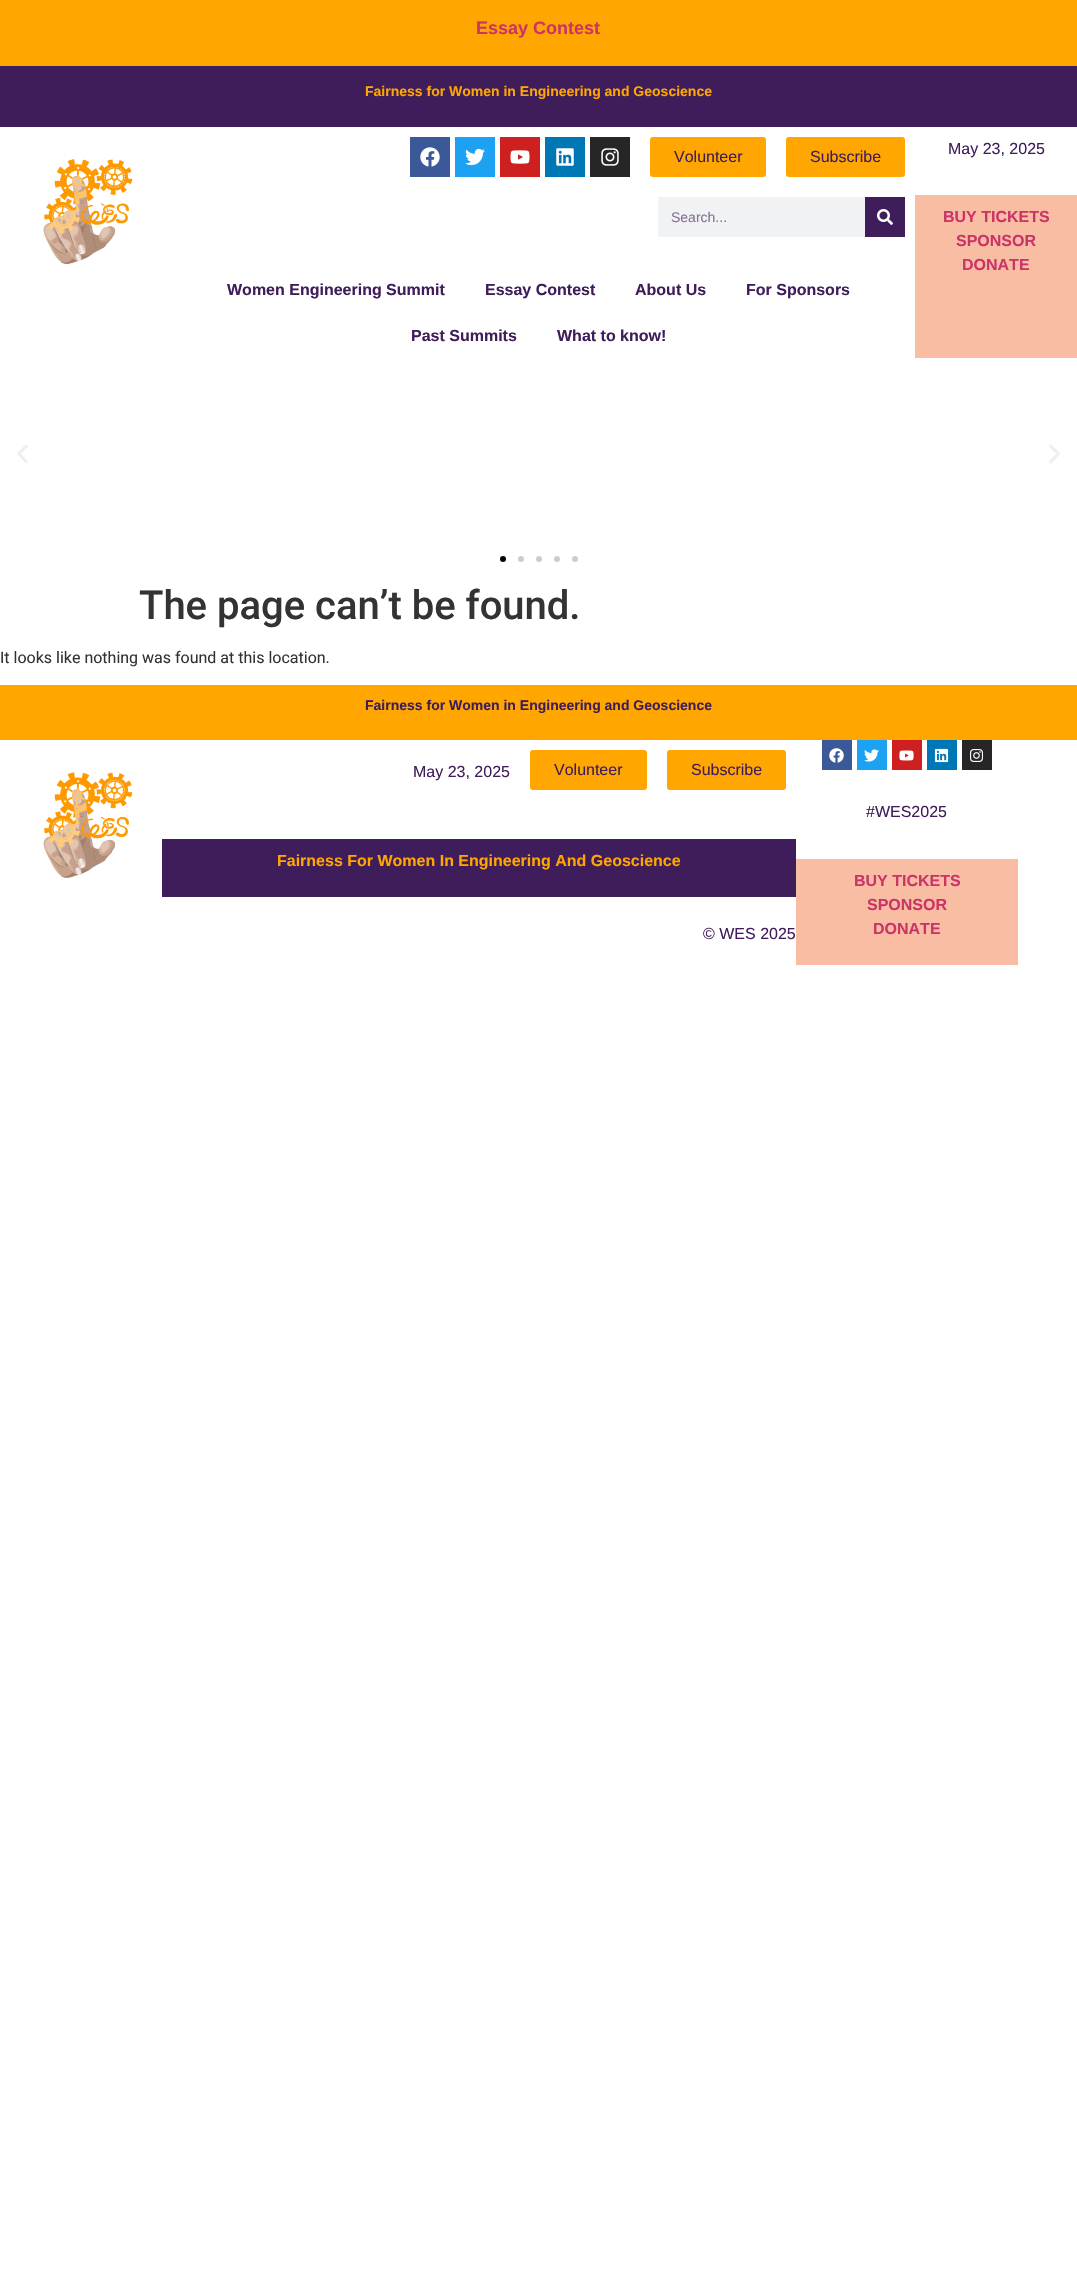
static SkFont makeFont(const char* family, int weight, float size, bool italic = false) {
  SkFontStyle style(weight, SkFontStyle::kNormal_Width,
    italic ? SkFontStyle::kItalic_Slant : SkFontStyle::kUpright_Slant);
  SkFont result(fontMgr->matchFamilyStyle(family, style), size);
  result.setSubpixel(true);
  return result;
}

static void text(SkCanvas* c, const char* s, float x, float y, const SkFont& font, SkColor color) {
  SkPaint ink(SkColor4f::FromColor(color));
  ink.setAntiAlias(true);
  c->drawString(s, x, y, font, ink);
}

static void box(SkCanvas* c, float l, float t, float r, float b, SkColor color) {
  SkPaint ink(SkColor4f::FromColor(color));
  ink.setAntiAlias(true);
  c->drawRect(SkRect::MakeLTRB(l, t, r, b), ink);
}

static void roundBox(SkCanvas* c, float l, float t, float r, float b, float radius, SkColor color) {
  SkPaint ink(SkColor4f::FromColor(color));
  ink.setAntiAlias(true);
  c->drawRoundRect(SkRect::MakeLTRB(l, t, r, b), radius, radius, ink);
}

static void picture(SkCanvas* c, const char* path, float l, float t, float r, float b) {
  auto image = SkImages::DeferredFromEncodedData(SkData::MakeFromFileName(path));
  c->drawImageRect(image, SkRect::MakeLTRB(l, t, r, b), SkSamplingOptions());
}

void draw(SkCanvas* c) {
  SkPaint paint;
  paint.setAntiAlias(true);
  c->clear(0xffffffff);
  box(c, 0, 0, 1077, 66, 0xffffa600);
  SkFont face1 = makeFont("Liberation Sans", 700, 18);
  text(c, "Essay Contest", 476, 34, face1, 0xffcc3366);
  box(c, 0, 66, 1077, 127, 0xff3f1d5a);
  SkFont face2 = makeFont("Liberation Sans", 700, 14);
  text(c, "Fairness for Women in Engineering and Geoscience", 365, 96, face2, 0xffffa600);
  picture(c, "img_01.png", 43, 159, 133, 265);
  box(c, 410, 137, 450, 177, 0xff3b5998);
  picture(c, "img_02.png", 420, 147, 440, 167);
  box(c, 455, 137, 495, 177, 0xff1da1f2);
  picture(c, "img_03.png", 465, 148, 485, 166);
  box(c, 500, 137, 540, 177, 0xffcd201f);
  picture(c, "img_04.png", 510, 150, 530, 164);
  box(c, 545, 137, 585, 177, 0xff0077b5);
  picture(c, "img_05.png", 556, 148, 574, 166);
  box(c, 590, 137, 630, 177, 0xff262626);
  picture(c, "img_06.png", 601, 148, 619, 166);
  roundBox(c, 650, 137, 766, 177, 3, 0xffffa600);
  SkFont face3 = makeFont("Liberation Sans", 400, 16);
  text(c, "Volunteer", 674, 162, face3, 0xff3f1d5a);
  roundBox(c, 786, 137, 905, 177, 3, 0xffffa600);
  text(c, "Subscribe", 810, 162, face3, 0xff3f1d5a);
  box(c, 658, 197, 865, 237, 0xfff1f2f3);
  SkFont face4 = makeFont("Liberation Sans", 400, 14);
  text(c, "Search...", 671, 222, face4, 0xff867297);
  box(c, 865, 197, 905, 237, 0xff3f1d5a);
  picture(c, "img_07.png", 877, 209, 893, 225);
  SkFont face5 = makeFont("Liberation Sans", 700, 16);
  text(c, "Women Engineering Summit", 227, 295, face5, 0xff3f1d5a);
  text(c, "Essay Contest", 485, 295, face5, 0xff3f1d5a);
  text(c, "About Us", 635, 295, face5, 0xff3f1d5a);
  text(c, "For Sponsors", 746, 295, face5, 0xff3f1d5a);
  text(c, "Past Summits", 411, 341, face5, 0xff3f1d5a);
  text(c, "What to know!", 557, 341, face5, 0xff3f1d5a);
  text(c, "May 23, 2025", 948, 154, face3, 0xff3f1d5a);
  box(c, 915, 195, 1077, 358, 0xfff9bda4);
  text(c, "BUY TICKETS", 943, 222, face5, 0xffcc3366);
  text(c, "SPONSOR", 956, 246, face5, 0xffcc3366);
  text(c, "DONATE", 962, 270, face5, 0xffcc3366);
  picture(c, "img_08.png", 17, 444, 28, 464);
  picture(c, "img_09.png", 1049, 444, 1060, 464);
  paint.setColor(0xff000000);
  c->drawCircle(503, 559, 3, paint);
  paint.setColor(0xffcccccc);
  c->drawCircle(521, 559, 3, paint);
  c->drawCircle(539, 559, 3, paint);
  c->drawCircle(557, 559, 3, paint);
  c->drawCircle(575, 559, 3, paint);
  SkFont face6 = makeFont("Roboto", 500, 40);
  text(c, "The page can’t be found.", 139, 619, face6, 0xff333333);
  SkFont face7 = makeFont("Roboto", 400, 16);
  text(c, "It looks like nothing was found at this location.", 0, 663, face7, 0xff333333);
  box(c, 0, 685, 1077, 740, 0xffffa600);
  text(c, "Fairness for Women in Engineering and Geoscience", 365, 710, face2, 0xff3f1d5a);
  picture(c, "img_10.png", 43, 772, 133, 878);
  text(c, "May 23, 2025", 413, 777, face3, 0xff3f1d5a);
  roundBox(c, 530, 750, 647, 790, 3, 0xffffa600);
  text(c, "Volunteer", 554, 775, face3, 0xff3f1d5a);
  roundBox(c, 667, 750, 786, 790, 3, 0xffffa600);
  text(c, "Subscribe", 691, 775, face3, 0xff3f1d5a);
  box(c, 162, 839, 796, 897, 0xff3f1d5a);
  text(c, "Fairness For Women In Engineering And Geoscience", 277, 866, face5, 0xffffa600);
  text(c, "© WES 2025", 703, 939, face3, 0xff3f1d5a);
  box(c, 822, 740, 852, 770, 0xff3b5998);
  picture(c, "img_11.png", 829, 748, 844, 763);
  box(c, 857, 740, 887, 770, 0xff1da1f2);
  picture(c, "img_12.png", 864, 749, 879, 762);
  box(c, 892, 740, 922, 770, 0xffcd201f);
  picture(c, "img_13.png", 899, 750, 914, 761);
  box(c, 927, 740, 957, 770, 0xff0077b5);
  picture(c, "img_14.png", 934, 748, 949, 763);
  box(c, 962, 740, 992, 770, 0xff262626);
  picture(c, "img_15.png", 970, 749, 984, 762);
  text(c, "#WES2025", 866, 817, face3, 0xff3f1d5a);
  box(c, 796, 859, 1018, 965, 0xfff9bda4);
  text(c, "BUY TICKETS", 854, 886, face5, 0xffcc3366);
  text(c, "SPONSOR", 867, 910, face5, 0xffcc3366);
  text(c, "DONATE", 873, 934, face5, 0xffcc3366);
}
